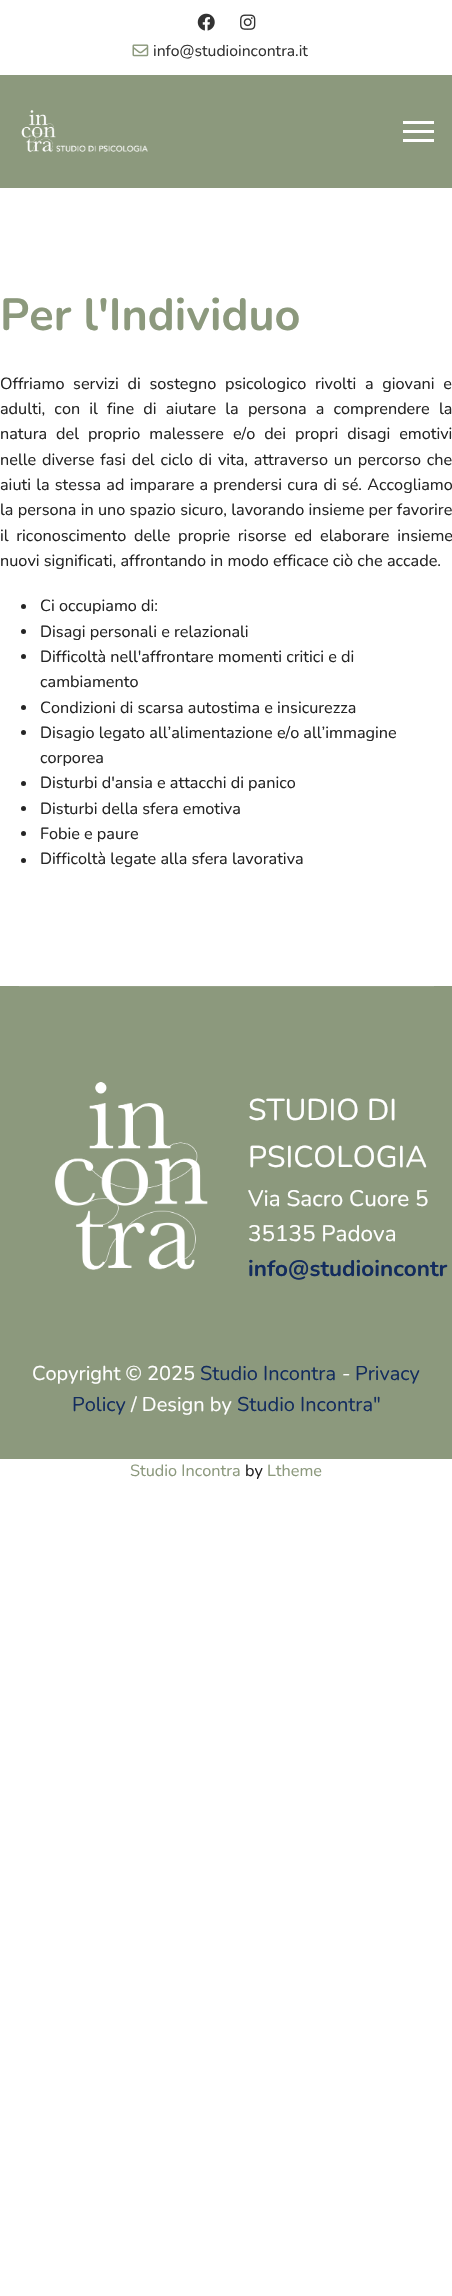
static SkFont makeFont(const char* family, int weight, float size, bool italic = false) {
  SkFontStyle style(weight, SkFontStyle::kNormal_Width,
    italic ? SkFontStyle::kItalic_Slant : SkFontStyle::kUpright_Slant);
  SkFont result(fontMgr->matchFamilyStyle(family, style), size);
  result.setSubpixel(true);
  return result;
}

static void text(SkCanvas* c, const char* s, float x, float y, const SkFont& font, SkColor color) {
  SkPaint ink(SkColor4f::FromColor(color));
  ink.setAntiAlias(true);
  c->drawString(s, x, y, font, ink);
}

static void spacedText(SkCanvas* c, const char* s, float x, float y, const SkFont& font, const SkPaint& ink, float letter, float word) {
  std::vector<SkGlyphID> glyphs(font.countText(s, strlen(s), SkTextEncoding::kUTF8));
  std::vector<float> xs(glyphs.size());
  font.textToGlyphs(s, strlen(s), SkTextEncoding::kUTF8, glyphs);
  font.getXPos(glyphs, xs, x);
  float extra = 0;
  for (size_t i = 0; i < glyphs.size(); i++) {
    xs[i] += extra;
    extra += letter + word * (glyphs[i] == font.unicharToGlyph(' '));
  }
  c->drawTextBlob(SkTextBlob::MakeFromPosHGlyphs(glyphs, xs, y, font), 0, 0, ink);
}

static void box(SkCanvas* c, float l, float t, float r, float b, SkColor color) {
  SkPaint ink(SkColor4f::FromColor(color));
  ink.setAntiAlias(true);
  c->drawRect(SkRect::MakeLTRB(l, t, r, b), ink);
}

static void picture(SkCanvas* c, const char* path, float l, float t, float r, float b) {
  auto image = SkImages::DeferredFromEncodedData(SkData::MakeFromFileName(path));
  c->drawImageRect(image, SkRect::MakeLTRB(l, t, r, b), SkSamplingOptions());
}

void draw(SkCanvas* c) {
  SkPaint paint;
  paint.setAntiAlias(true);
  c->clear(0xffffffff);
  picture(c, "img_01.png", 197, 13, 215, 31);
  picture(c, "img_02.png", 240, 14, 256, 30);
  picture(c, "img_03.png", 132, 44, 149, 57);
  SkFont face1 = makeFont("Nunito", 400, 15.75f);
  text(c, "info@studioincontra.it", 153, 56, face1, 0xff333333);
  box(c, 0, 75, 452, 188, 0xff8c997d);
  picture(c, "img_04.png", 21, 110, 148, 152);
  box(c, 403, 121, 434, 124, 0xffffffff);
  box(c, 403, 130, 434, 133, 0xffffffff);
  box(c, 403, 139, 434, 142, 0xffffffff);
  SkFont face2 = makeFont("Nunito", 700, 45);
  text(c, "Per l'Individuo", 0, 330, face2, 0xff8c997d);
  SkFont face3 = makeFont("Nunito", 400, 16.25f);
  paint.setColor(0xff252525);
  spacedText(c, "Offriamo servizi di sostegno psicologico rivolti a giovani e", 0, 389, face3, paint, 0, 4.5f);
  spacedText(c, "adulti, con il fine di aiutare la persona a comprendere la", 0, 414, face3, paint, 0, 5);
  spacedText(c, "natura del proprio malessere e/o dei propri disagi emotivi", 0, 439, face3, paint, 0, 4.75f);
  spacedText(c, "nelle diverse fasi del ciclo di vita, attraverso un percorso che", 0, 465, face3, paint, 0, 1.6f);
  spacedText(c, "aiuti la stessa ad imparare a prendersi cura di sé. Accogliamo", 0, 490, face3, paint, 0, 1);
  spacedText(c, "la persona in uno spazio sicuro, lavorando insieme per favorire", 0, 515, face3, paint, 0, 0.1f);
  spacedText(c, "il riconoscimento delle proprie risorse ed elaborare insieme", 0, 541, face3, paint, 0, 3.5f);
  text(c, "nuovi significati, affrontando in modo efficace ciò che accade.", 0, 566, face3, 0xff252525);
  c->drawCircle(23.5f, 606.5f, 2.5f, paint);
  text(c, "Ci occupiamo di:", 40, 611, face3, 0xff252525);
  c->drawCircle(23.5f, 631.5f, 2.5f, paint);
  text(c, "Disagi personali e relazionali", 40, 637, face3, 0xff252525);
  c->drawCircle(23.5f, 656.5f, 2.5f, paint);
  text(c, "Difficoltà nell'affrontare momenti critici e di", 40, 662, face3, 0xff252525);
  text(c, "cambiamento", 40, 687, face3, 0xff252525);
  c->drawCircle(23.5f, 707.5f, 2.5f, paint);
  text(c, "Condizioni di scarsa autostima e insicurezza", 40, 713, face3, 0xff252525);
  c->drawCircle(23.5f, 732.5f, 2.5f, paint);
  text(c, "Disagio legato all’alimentazione e/o all’immagine", 40, 738, face3, 0xff252525);
  text(c, "corporea", 40, 763, face3, 0xff252525);
  c->drawCircle(23.5f, 783.5f, 2.5f, paint);
  text(c, "Disturbi d'ansia e attacchi di panico", 40, 788, face3, 0xff252525);
  c->drawCircle(23.5f, 808.5f, 2.5f, paint);
  text(c, "Disturbi della sfera emotiva", 40, 814, face3, 0xff252525);
  c->drawCircle(23.5f, 833.5f, 2.5f, paint);
  text(c, "Fobie e paure", 40, 839, face3, 0xff252525);
  c->drawCircle(23.5f, 860.5f, 2.5f, paint);
  text(c, "Difficoltà legate alla sfera lavorativa", 40, 864, face3, 0xff252525);
  box(c, 0, 986, 452, 1459, 0xff8c997d);
  box(c, 19, 986, 434, 987, 0xff98a38a);
  picture(c, "img_05.png", 55, 1082, 208, 1270);
  SkFont face4 = makeFont("Nunito", 400, 30);
  text(c, "STUDIO DI", 248, 1120, face4, 0xffffffff);
  text(c, "PSICOLOGIA", 248, 1167, face4, 0xffffffff);
  SkFont face5 = makeFont("Nunito", 400, 22.5f);
  text(c, "Via Sacro Cuore 5", 248, 1206, face5, 0xffffffff);
  text(c, "35135 Padova", 248, 1241, face5, 0xffffffff);
  SkFont face6 = makeFont("Nunito", 700, 22.5f);
  text(c, "info@studioincontr", 248, 1276, face6, 0xff132c5e);
  SkFont face7 = makeFont("Nunito", 400, 20);
  text(c, "Copyright © 2025", 32, 1380, face7, 0xffffffff);
  text(c, "Studio Incontra", 200, 1380, face7, 0xff132c5e);
  text(c, "-", 342, 1380, face7, 0xffffffff);
  text(c, "Privacy", 355, 1380, face7, 0xff132c5e);
  text(c, "Policy", 72, 1411, face7, 0xff132c5e);
  text(c, "/ Design by", 131, 1411, face7, 0xffffffff);
  text(c, "Studio Incontra\"", 237, 1411, face7, 0xff132c5e);
  text(c, "Studio Incontra", 130, 1476, face3, 0xff8c997d);
  text(c, "by", 245, 1476, face3, 0xff252525);
  text(c, "Ltheme", 267, 1476, face3, 0xff8c997d);
}
